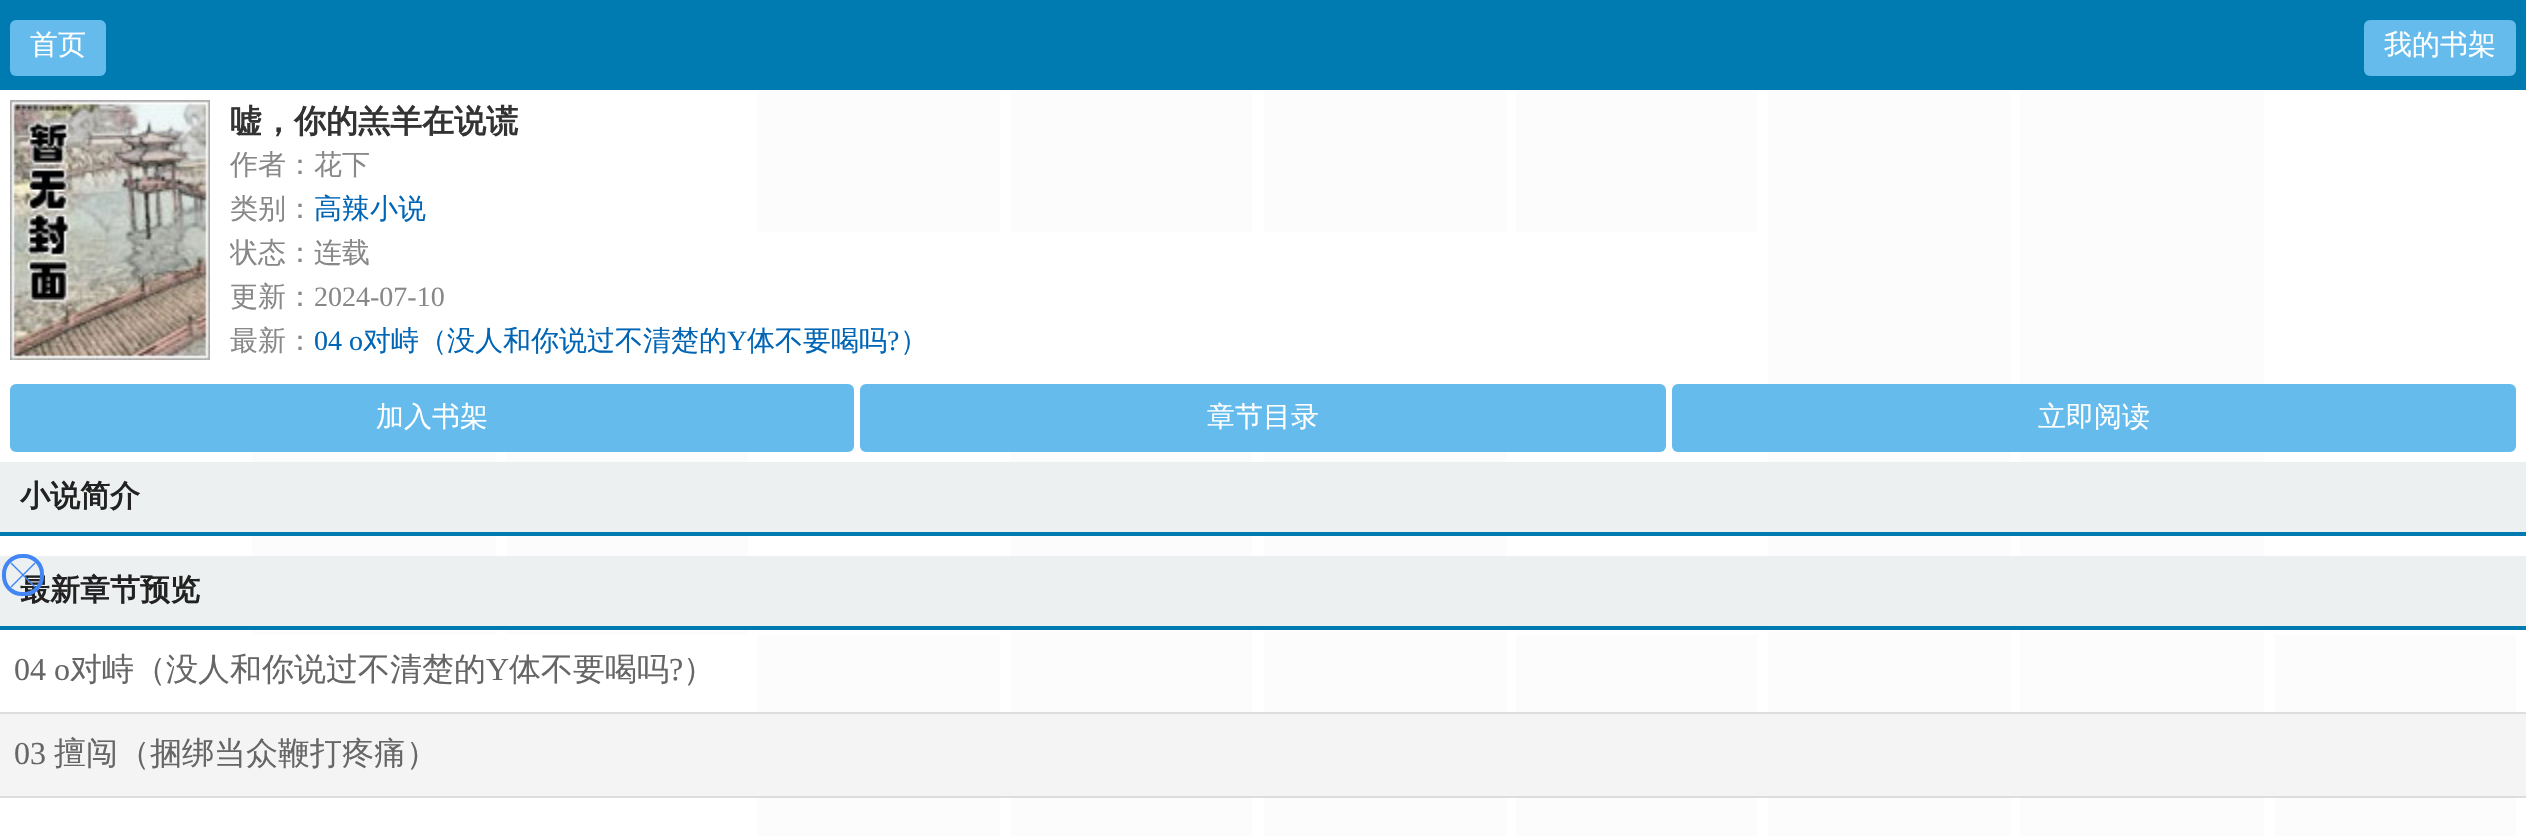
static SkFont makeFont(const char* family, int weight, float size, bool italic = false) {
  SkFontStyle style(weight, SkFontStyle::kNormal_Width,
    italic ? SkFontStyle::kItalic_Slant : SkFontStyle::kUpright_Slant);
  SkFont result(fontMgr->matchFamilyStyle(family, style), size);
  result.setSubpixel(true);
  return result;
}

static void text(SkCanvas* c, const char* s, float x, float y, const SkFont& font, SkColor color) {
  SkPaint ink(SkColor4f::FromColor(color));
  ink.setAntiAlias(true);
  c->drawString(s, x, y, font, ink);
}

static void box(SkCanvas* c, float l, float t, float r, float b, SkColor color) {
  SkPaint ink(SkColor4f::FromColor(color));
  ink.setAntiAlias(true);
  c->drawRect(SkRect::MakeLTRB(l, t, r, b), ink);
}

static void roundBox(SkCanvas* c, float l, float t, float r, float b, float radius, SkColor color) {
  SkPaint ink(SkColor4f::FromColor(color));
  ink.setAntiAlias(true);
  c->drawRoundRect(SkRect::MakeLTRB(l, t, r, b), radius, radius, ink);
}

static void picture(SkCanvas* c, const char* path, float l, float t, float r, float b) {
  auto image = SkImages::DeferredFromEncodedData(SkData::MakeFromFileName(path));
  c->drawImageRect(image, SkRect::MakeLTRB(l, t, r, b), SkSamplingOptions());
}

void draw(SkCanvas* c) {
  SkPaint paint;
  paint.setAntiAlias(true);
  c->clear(0xffffffff);
  box(c, 2020, 90, 2264, 384, 0xfffcfcfc);
  box(c, 1768, 90, 2010, 384, 0xfffcfcfc);
  box(c, 1516, 90, 1758, 232, 0xfffcfcfc);
  box(c, 1264, 90, 1506, 232, 0xfffcfcfc);
  box(c, 1010, 90, 1252, 232, 0xfffcfcfc);
  box(c, 758, 90, 1000, 232, 0xfffcfcfc);
  box(c, 2020, 452, 2264, 836, 0xfffcfcfc);
  box(c, 1768, 452, 2010, 836, 0xfffcfcfc);
  box(c, 1264, 452, 1506, 836, 0xfffcfcfc);
  box(c, 1010, 452, 1252, 836, 0xfffcfcfc);
  box(c, 506, 452, 748, 634, 0xfffcfcfc);
  box(c, 252, 452, 496, 634, 0xfffcfcfc);
  box(c, 2274, 634, 2516, 836, 0xfffcfcfc);
  box(c, 1516, 634, 1758, 836, 0xfffcfcfc);
  box(c, 758, 634, 1000, 836, 0xfffcfcfc);
  box(c, 0, 0, 2526, 90, 0xff007bb1);
  roundBox(c, 10, 20, 106, 76, 6, 0xff65bbec);
  SkFont face1 = makeFont("WenQuanYi Zen Hei", 500, 28);
  text(c, "首页", 30, 54, face1, 0xffffffff);
  roundBox(c, 2364, 20, 2516, 76, 6, 0xff65bbec);
  text(c, "我的书架", 2384, 54, face1, 0xffffffff);
  picture(c, "img_01.png", 10, 100, 210, 360);
  SkFont face2 = makeFont("WenQuanYi Zen Hei", 700, 32);
  text(c, "嘘，你的羔羊在说谎", 230, 132, face2, 0xff333333);
  text(c, "作者：花下", 230, 174, face1, 0xff888888);
  text(c, "类别：", 230, 218, face1, 0xff888888);
  text(c, "高辣小说", 314, 218, face1, 0xff0065b5);
  c->save();
  c->clipRect(SkRect::MakeLTRB(230, 232, 2516, 276));
  text(c, "状态：连载", 230, 262, face1, 0xff888888);
  c->restore();
  text(c, "更新：", 230, 306, face1, 0xff888888);
  SkFont face3 = makeFont("Liberation Serif", 400, 28);
  text(c, "2024-07-10", 314, 306, face3, 0xff888888);
  text(c, "最新：", 230, 350, face1, 0xff888888);
  text(c, "04 o", 314, 350, face3, 0xff0065b5);
  text(c, "对峙（没人和你说过不清楚的", 363, 350, face1, 0xff0065b5);
  text(c, "Y", 727, 350, face3, 0xff0065b5);
  text(c, "体不要喝吗", 747, 350, face1, 0xff0065b5);
  text(c, "?", 887, 350, face3, 0xff0065b5);
  text(c, "）", 900, 350, face1, 0xff0065b5);
  roundBox(c, 10, 384, 854, 452, 6, 0xff65bbec);
  text(c, "加入书架", 376, 426, face1, 0xffffffff);
  roundBox(c, 860, 384, 1666, 452, 6, 0xff65bbec);
  text(c, "章节目录", 1207, 426, face1, 0xffffffff);
  roundBox(c, 1672, 384, 2516, 452, 6, 0xff65bbec);
  text(c, "立即阅读", 2038, 426, face1, 0xffffffff);
  box(c, 0, 462, 2526, 532, 0xffecf0f0);
  box(c, 0, 532, 2526, 536, 0xff007bb1);
  SkFont face4 = makeFont("WenQuanYi Zen Hei", 700, 30);
  text(c, "小说简介", 20, 506, face4, 0xff222222);
  box(c, 0, 556, 2526, 626, 0xffecf0f0);
  text(c, "最新章节预览", 20, 600, face4, 0xff222222);
  paint.setStyle(SkPaint::kStroke_Style);
  paint.setStrokeWidth(4);
  paint.setColor(0xff4285f4);
  c->drawRoundRect(SkRect::MakeLTRB(4, 556, 42, 594), 18, 18, paint);
  paint.setStyle(SkPaint::kFill_Style);
  c->drawPath(SkPathBuilder().moveTo(11.5f, 562.5f).lineTo(35.5f, 586.5f).lineTo(34.5f, 587.5f).lineTo(10.5f, 563.5f).close().detach(), paint);
  c->drawPath(SkPathBuilder().moveTo(10.5f, 586.5f).lineTo(34.5f, 562.5f).lineTo(35.5f, 563.5f).lineTo(11.5f, 587.5f).close().detach(), paint);
  box(c, 0, 626, 2526, 630, 0xff007bb1);
  box(c, 0, 712, 2526, 714, 0xffdddddd);
  SkFont face5 = makeFont("Liberation Serif", 400, 32);
  text(c, "04 o", 14, 680, face5, 0xff666666);
  SkFont face6 = makeFont("WenQuanYi Zen Hei", 500, 32);
  text(c, "对峙（没人和你说过不清楚的", 70, 680, face6, 0xff666666);
  text(c, "Y", 486, 680, face5, 0xff666666);
  text(c, "体不要喝吗", 509, 680, face6, 0xff666666);
  text(c, "?", 669, 680, face5, 0xff666666);
  text(c, "）", 683, 680, face6, 0xff666666);
  box(c, 0, 714, 2526, 796, 0xfff4f4f4);
  box(c, 0, 796, 2526, 798, 0xffdddddd);
  text(c, "03", 14, 764, face5, 0xff666666);
  text(c, "擅闯（捆绑当众鞭打疼痛）", 54, 764, face6, 0xff666666);
}
